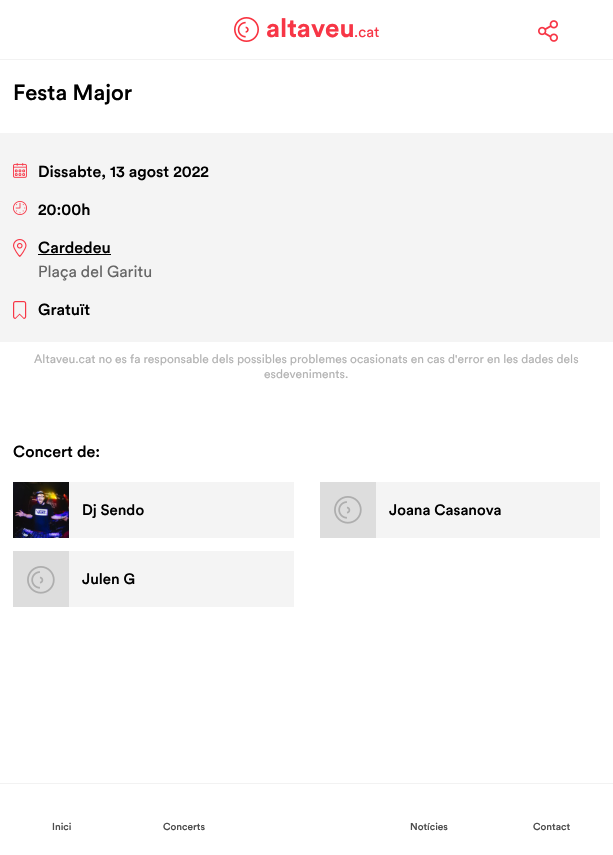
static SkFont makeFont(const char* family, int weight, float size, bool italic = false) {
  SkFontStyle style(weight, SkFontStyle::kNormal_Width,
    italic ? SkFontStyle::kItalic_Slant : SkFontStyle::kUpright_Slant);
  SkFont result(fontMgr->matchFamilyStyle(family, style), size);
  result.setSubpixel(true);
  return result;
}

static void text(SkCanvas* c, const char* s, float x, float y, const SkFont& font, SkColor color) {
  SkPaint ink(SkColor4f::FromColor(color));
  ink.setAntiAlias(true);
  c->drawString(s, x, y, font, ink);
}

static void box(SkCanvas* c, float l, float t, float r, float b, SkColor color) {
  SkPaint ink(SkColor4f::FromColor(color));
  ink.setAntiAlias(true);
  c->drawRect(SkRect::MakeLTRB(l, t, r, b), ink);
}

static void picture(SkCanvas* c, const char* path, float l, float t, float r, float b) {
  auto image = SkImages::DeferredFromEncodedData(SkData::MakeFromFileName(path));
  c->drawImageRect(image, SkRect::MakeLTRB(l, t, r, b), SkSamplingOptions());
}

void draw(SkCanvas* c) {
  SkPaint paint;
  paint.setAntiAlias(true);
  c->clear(0xffffffff);
  box(c, 0, 59, 613, 60, 0xfff2f2f2);
  picture(c, "img_01.png", 234, 17, 259, 42);
  SkFont face1 = makeFont("Circular", 700, 26);
  text(c, "altaveu", 266, 37, face1, 0xfff73646);
  SkFont face2 = makeFont("Circular", 400, 15);
  text(c, ".cat", 354, 37, face2, 0xfff73646);
  picture(c, "img_02.png", 538, 20, 558, 42);
  SkFont face3 = makeFont("Circular", 500, 22);
  text(c, "Festa Major", 13, 100, face3, 0xff000000);
  box(c, 0, 133, 613, 342, 0xfff4f4f4);
  picture(c, "img_03.png", 13, 163, 27, 178);
  SkFont face4 = makeFont("Circular", 500, 16);
  text(c, "Dissabte, 13 agost 2022", 38, 177, face4, 0xff000000);
  picture(c, "img_04.png", 13, 201, 27, 215);
  text(c, "20:00h", 38, 215, face4, 0xff000000);
  picture(c, "img_05.png", 13, 239, 27, 257);
  text(c, "Cardedeu", 38, 253, face4, 0xff000000);
  box(c, 38, 254, 111, 255, 0xff000000);
  SkFont face5 = makeFont("Circular", 400, 16);
  text(c, "Plaça del Garitu", 38, 277, face5, 0xff666666);
  picture(c, "img_06.png", 13, 301, 27, 319);
  text(c, "Gratuït", 38, 315, face4, 0xff000000);
  SkFont face6 = makeFont("Circular", 400, 12);
  text(c, "Altaveu.cat no es fa responsable dels possibles problemes ocasionats en cas d'error en les dades dels", 34, 363, face6, 0xffb3b3b3);
  text(c, "esdeveniments.", 264, 378, face6, 0xffb3b3b3);
  text(c, "Concert de:", 13, 457, face4, 0xff000000);
  box(c, 69, 482, 294, 538, 0xfff4f4f4);
  picture(c, "img_07.png", 13, 482, 69, 538);
  SkFont face7 = makeFont("Circular", 500, 15);
  text(c, "Dj Sendo", 82, 515, face7, 0xff000000);
  box(c, 376, 482, 600, 538, 0xfff4f4f4);
  picture(c, "img_08.png", 320, 482, 376, 538);
  text(c, "Joana Casanova", 389, 515, face7, 0xff000000);
  box(c, 69, 551, 294, 607, 0xfff4f4f4);
  picture(c, "img_09.png", 13, 551, 69, 607);
  text(c, "Julen G", 82, 584, face7, 0xff000000);
  box(c, 0, 783, 613, 784, 0xfff2f2f2);
  SkFont face8 = makeFont("Circular", 500, 10);
  text(c, "Inici", 52, 830, face8, 0xff4d4d4d);
  text(c, "Concerts", 163, 830, face8, 0xff4d4d4d);
  text(c, "Notícies", 410, 830, face8, 0xff4d4d4d);
  text(c, "Contact", 533, 830, face8, 0xff4d4d4d);
}
